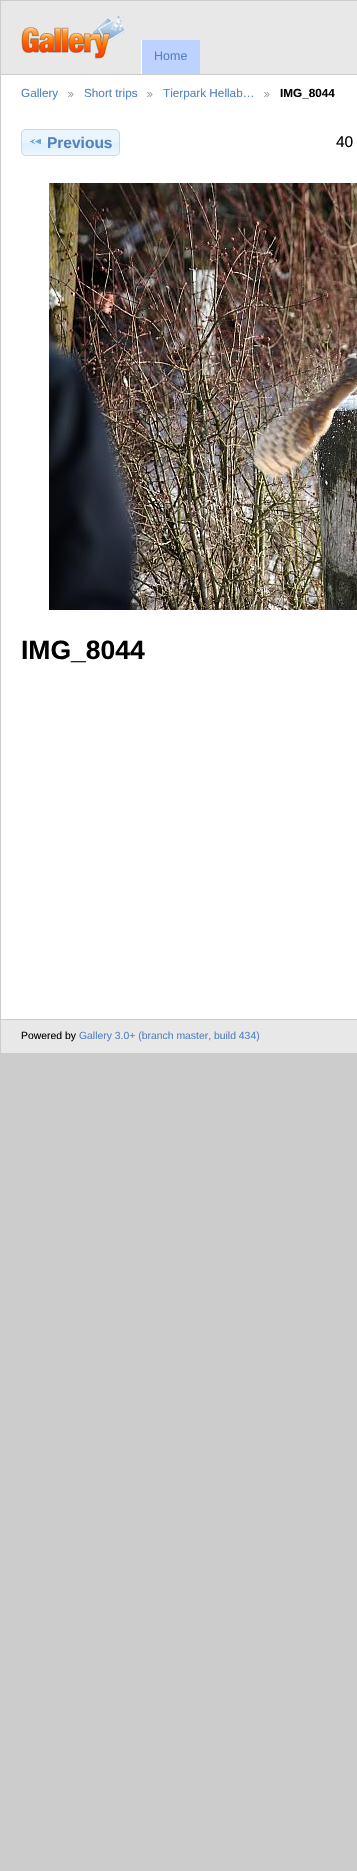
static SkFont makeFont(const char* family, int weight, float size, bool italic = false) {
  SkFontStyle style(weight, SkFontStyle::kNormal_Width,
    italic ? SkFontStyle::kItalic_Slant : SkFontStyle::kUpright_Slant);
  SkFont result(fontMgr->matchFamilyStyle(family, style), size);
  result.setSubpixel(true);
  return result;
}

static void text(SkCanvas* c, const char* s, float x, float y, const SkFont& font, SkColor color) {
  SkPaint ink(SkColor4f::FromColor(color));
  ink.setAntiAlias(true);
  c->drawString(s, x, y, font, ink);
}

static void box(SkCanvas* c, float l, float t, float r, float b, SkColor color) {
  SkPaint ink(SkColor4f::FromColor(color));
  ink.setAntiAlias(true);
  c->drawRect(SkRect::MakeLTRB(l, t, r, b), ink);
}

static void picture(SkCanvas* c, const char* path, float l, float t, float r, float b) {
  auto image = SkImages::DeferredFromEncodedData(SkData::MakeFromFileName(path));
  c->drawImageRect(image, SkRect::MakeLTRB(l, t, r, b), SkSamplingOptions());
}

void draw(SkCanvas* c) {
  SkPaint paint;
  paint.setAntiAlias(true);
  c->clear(0xffcccccc);
  box(c, 1, 75, 357, 1019, 0xffffffff);
  box(c, 1, 1, 357, 74, 0xffe8e8e8);
  picture(c, "img_01.png", 21, 15, 127, 59);
  box(c, 141, 39, 200, 74, 0xffbdd2ff);
  paint.setColor(0xffdee9ff);
  c->drawPath(SkPathBuilder().moveTo(141, 39).lineTo(200, 39).lineTo(200, 40).lineTo(142, 40).close().detach(), paint);
  paint.setColor(0xffffffff);
  c->drawPath(SkPathBuilder().moveTo(141, 74).lineTo(141, 39).lineTo(142, 40).lineTo(142, 74).close().detach(), paint);
  SkFont face1 = makeFont("Liberation Sans", 400, 12.5f);
  text(c, "Home", 154, 60, face1, 0xff5382bf);
  SkFont face2 = makeFont("Liberation Sans", 400, 11.75f);
  text(c, "Gallery", 21, 97, face2, 0xff5382bf);
  picture(c, "img_02.png", 68, 92, 74, 97);
  text(c, "Short trips", 84, 97, face2, 0xff5382bf);
  picture(c, "img_02.png", 147, 92, 153, 97);
  text(c, "Tierpark Hellab…", 163, 97, face2, 0xff5382bf);
  picture(c, "img_02.png", 264, 92, 270, 97);
  SkFont face3 = makeFont("Liberation Sans", 700, 11.75f);
  text(c, "IMG_8044", 280, 97, face3, 0xff000000);
  picture(c, "img_03.png", 21, 129, 120, 156);
  paint.setStyle(SkPaint::kStroke_Style);
  paint.setStrokeWidth(1);
  paint.setColor(0xffc5dbec);
  c->drawRoundRect(SkRect::MakeLTRB(21.5f, 129.5f, 119.5f, 155.5f), 4.5f, 4.5f, paint);
  picture(c, "img_04.png", 30, 139, 41, 144);
  SkFont face4 = makeFont("Liberation Sans", 700, 15.5f);
  text(c, "Previous", 47, 148, face4, 0xff5382bf);
  SkFont face5 = makeFont("Liberation Sans", 400, 15.5f);
  text(c, "40", 336, 147, face5, 0xff000000);
  picture(c, "img_05.png", 49, 183, 357, 610);
  SkFont face6 = makeFont("Liberation Sans", 700, 26.5f);
  text(c, "IMG_8044", 21, 659, face6, 0xff000000);
  box(c, 1, 1020, 357, 1053, 0xffe8e8e8);
  SkFont face7 = makeFont("Liberation Sans", 400, 10.4f);
  text(c, "Powered by", 21, 1039, face7, 0xff000000);
  text(c, "Gallery 3.0+ (branch master, build 434)", 79, 1039, face7, 0xff5382bf);
}
